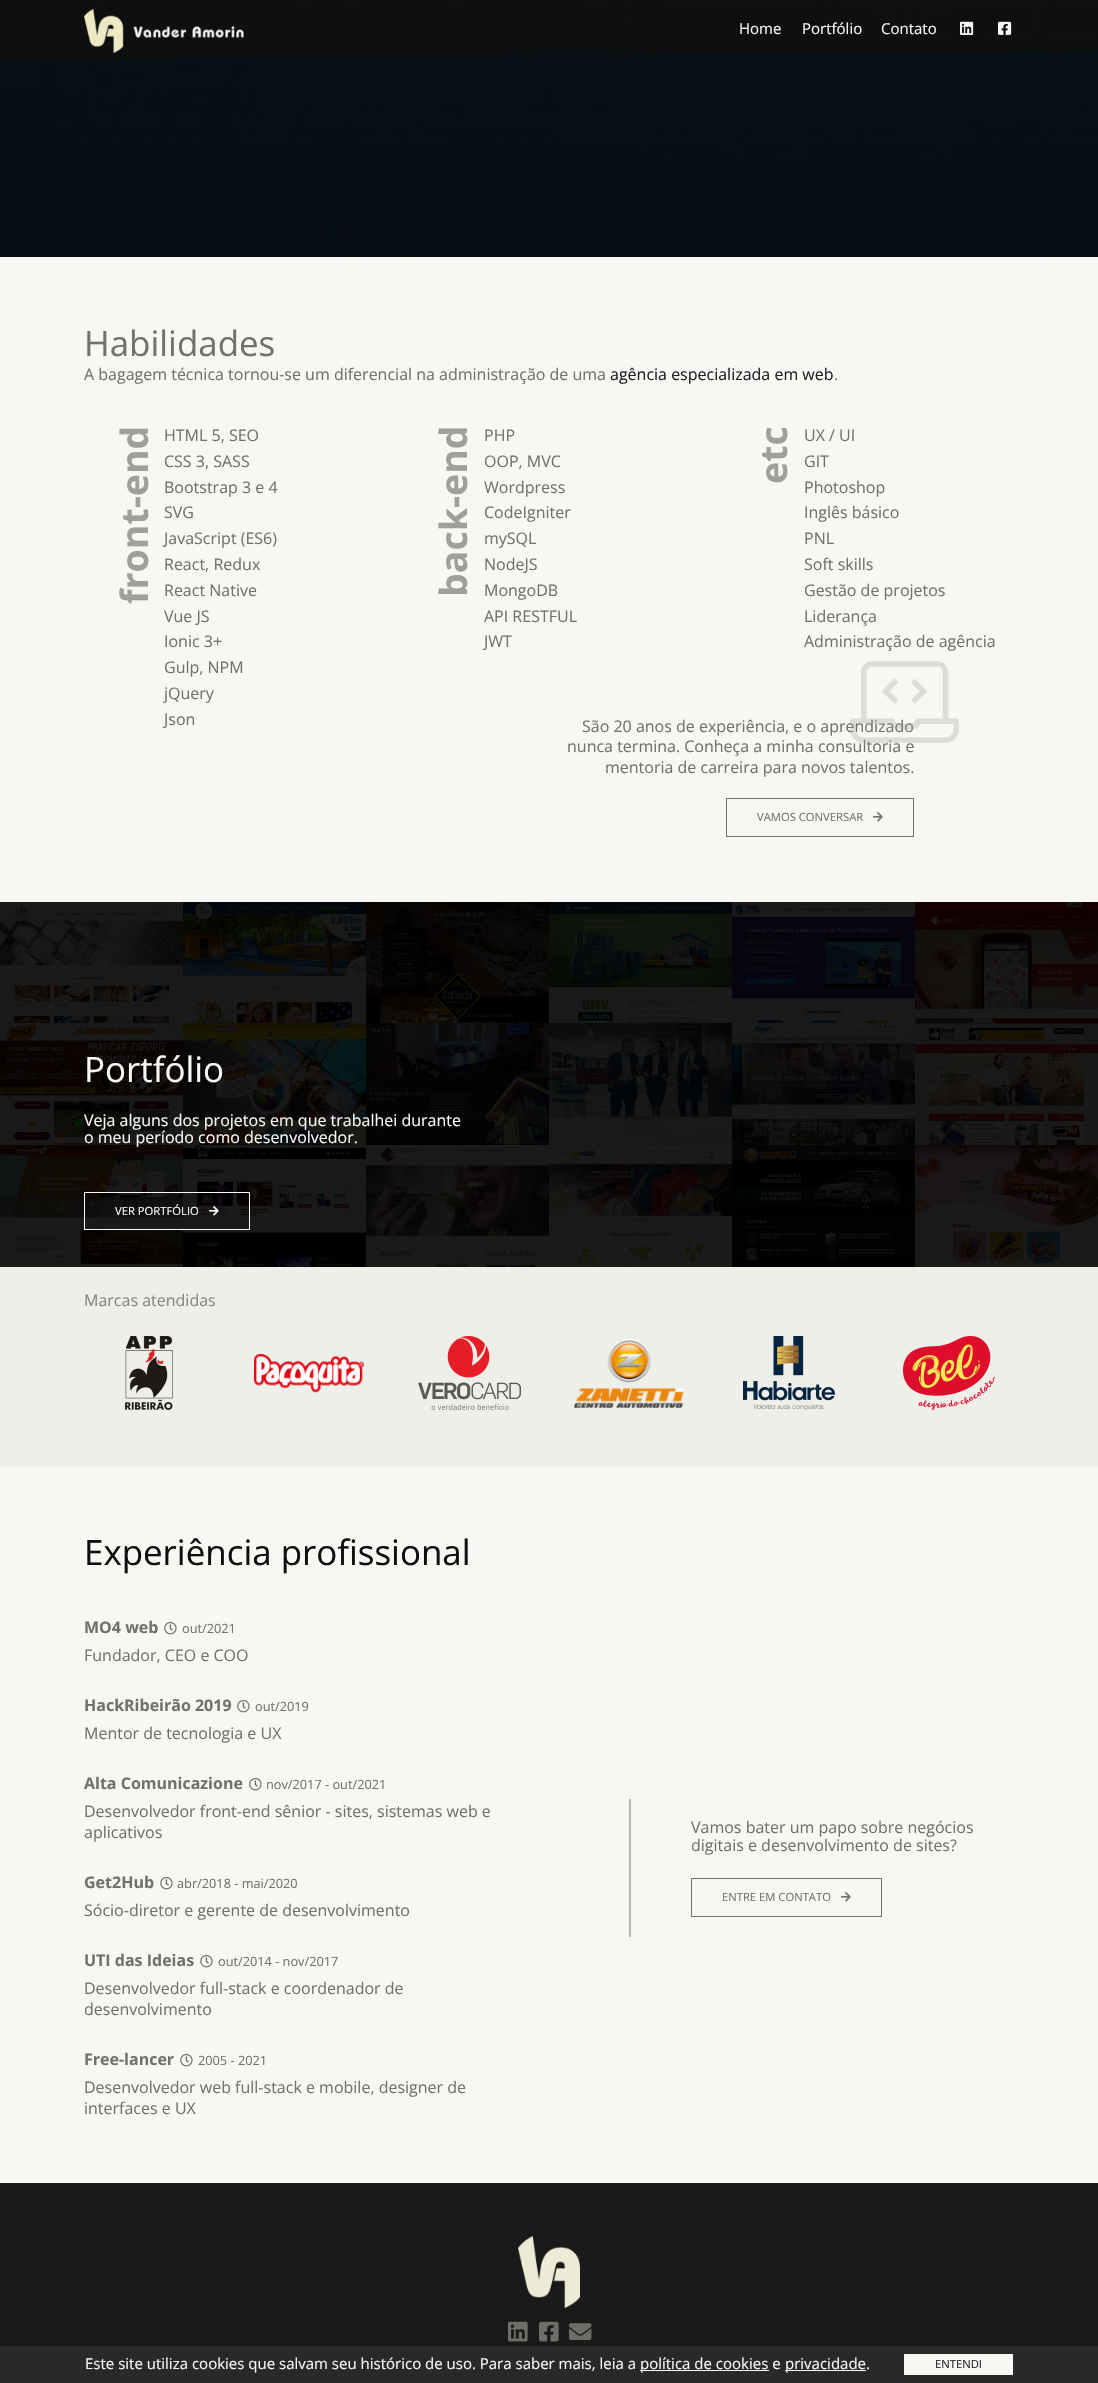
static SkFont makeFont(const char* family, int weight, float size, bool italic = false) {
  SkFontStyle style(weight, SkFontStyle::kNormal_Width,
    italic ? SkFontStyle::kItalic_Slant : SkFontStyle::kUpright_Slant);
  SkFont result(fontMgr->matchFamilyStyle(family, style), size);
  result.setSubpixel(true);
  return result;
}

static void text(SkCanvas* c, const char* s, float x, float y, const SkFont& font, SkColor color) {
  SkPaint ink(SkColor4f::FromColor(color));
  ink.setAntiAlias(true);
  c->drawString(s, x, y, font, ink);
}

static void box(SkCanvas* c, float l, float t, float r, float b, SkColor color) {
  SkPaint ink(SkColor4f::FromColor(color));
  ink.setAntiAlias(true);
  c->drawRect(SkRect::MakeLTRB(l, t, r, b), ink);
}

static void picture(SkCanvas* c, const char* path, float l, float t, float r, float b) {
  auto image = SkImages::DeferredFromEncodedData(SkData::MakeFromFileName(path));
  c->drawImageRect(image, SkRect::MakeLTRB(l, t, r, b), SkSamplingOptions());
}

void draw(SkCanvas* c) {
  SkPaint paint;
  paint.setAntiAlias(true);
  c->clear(0xfff7f7f4);
  picture(c, "img_04.png", 0, 0, 1098, 257);
  paint.setColor(0xe00f0f0f);
  c->drawPath(SkPathBuilder().moveTo(-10, -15).lineTo(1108, -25).lineTo(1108, 50).lineTo(-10, 60).close().detach(), paint);
  picture(c, "img_01.png", 84, 8, 244, 54);
  SkFont face1 = makeFont("Open Sans", 400, 15);
  text(c, "Home", 739, 34, face1, 0xfff7f7f4);
  text(c, "Portfólio", 802, 34, face1, 0xfff7f7f4);
  text(c, "Contato", 881, 34, face1, 0xfff7f7f4);
  picture(c, "img_02.png", 960, 21, 974, 35);
  picture(c, "img_03.png", 998, 21, 1012, 35);
  SkFont face2 = makeFont("Open Sans", 400, 34.9f);
  text(c, "Habilidades", 84, 356, face2, 0xff73726a);
  SkFont face3 = makeFont("Open Sans", 400, 16);
  text(c, "A bagagem técnica tornou-se um diferencial na administração de uma", 84, 380, face3, 0xff73726a);
  text(c, "agência especializada em web", 610, 380, face3, 0xff202023);
  text(c, ".", 834, 380, face3, 0xff73726a);
  SkFont face4 = makeFont("Open Sans", 700, 37.5f);
  c->save();
  c->rotate(-90, 148, 604);
  text(c, "front-end", 148, 604, face4, 0xff9f9f9c);
  c->restore();
  text(c, "HTML 5, SEO", 164, 441, face3, 0xff73726a);
  text(c, "CSS 3, SASS", 164, 467, face3, 0xff73726a);
  text(c, "Bootstrap 3 e 4", 164, 493, face3, 0xff73726a);
  text(c, "SVG", 164, 518, face3, 0xff73726a);
  text(c, "JavaScript (ES6)", 164, 544, face3, 0xff73726a);
  text(c, "React, Redux", 164, 570, face3, 0xff73726a);
  text(c, "React Native", 164, 596, face3, 0xff73726a);
  text(c, "Vue JS", 164, 622, face3, 0xff73726a);
  text(c, "Ionic 3+", 164, 647, face3, 0xff73726a);
  text(c, "Gulp, NPM", 164, 673, face3, 0xff73726a);
  text(c, "jQuery", 164, 699, face3, 0xff73726a);
  text(c, "Json", 164, 725, face3, 0xff73726a);
  c->save();
  c->rotate(-90, 467, 597);
  text(c, "back-end", 467, 597, face4, 0xff9f9f9c);
  c->restore();
  text(c, "PHP", 484, 441, face3, 0xff73726a);
  text(c, "OOP, MVC", 484, 467, face3, 0xff73726a);
  text(c, "Wordpress", 484, 493, face3, 0xff73726a);
  text(c, "CodeIgniter", 484, 518, face3, 0xff73726a);
  text(c, "mySQL", 484, 544, face3, 0xff73726a);
  text(c, "NodeJS", 484, 570, face3, 0xff73726a);
  text(c, "MongoDB", 484, 596, face3, 0xff73726a);
  text(c, "API RESTFUL", 484, 622, face3, 0xff73726a);
  text(c, "JWT", 484, 647, face3, 0xff73726a);
  c->save();
  c->rotate(-90, 787, 484);
  text(c, "etc", 787, 484, face4, 0xff9f9f9c);
  c->restore();
  text(c, "UX / UI", 804, 441, face3, 0xff73726a);
  text(c, "GIT", 804, 467, face3, 0xff73726a);
  text(c, "Photoshop", 804, 493, face3, 0xff73726a);
  text(c, "Inglês básico", 804, 518, face3, 0xff73726a);
  text(c, "PNL", 804, 544, face3, 0xff73726a);
  text(c, "Soft skills", 804, 570, face3, 0xff73726a);
  text(c, "Gestão de projetos", 804, 596, face3, 0xff73726a);
  text(c, "Liderança", 804, 622, face3, 0xff73726a);
  text(c, "Administração de agência", 804, 647, face3, 0xff73726a);
  text(c, "São 20 anos de experiência, e o aprendizado", 582, 732, face3, 0xff73726a);
  text(c, "nunca termina. Conheça a minha consultoria e", 567, 752, face3, 0xff73726a);
  picture(c, "img_05.png", 850, 661, 959, 743);
  text(c, "mentoria de carreira para novos talentos.", 605, 773, face3, 0xff73726a);
  paint.setStyle(SkPaint::kStroke_Style);
  paint.setStrokeWidth(1);
  paint.setColor(0xff73726a);
  c->drawRect(SkRect::MakeLTRB(726.5f, 798.5f, 913.5f, 836.5f), paint);
  SkFont face5 = makeFont("Open Sans", 400, 11.25f);
  text(c, "VAMOS CONVERSAR", 757, 821, face5, 0xff73726a);
  picture(c, "img_06.png", 873, 812, 883, 822);
  box(c, 0, 902, 1098, 1267, 0xff000000);
  picture(c, "img_07.png", 0, 902, 183, 1023);
  picture(c, "img_08.png", 183, 902, 366, 1023);
  picture(c, "img_09.png", 366, 902, 549, 1023);
  picture(c, "img_10.png", 549, 902, 732, 1023);
  picture(c, "img_11.png", 732, 902, 915, 1023);
  picture(c, "img_12.png", 915, 902, 1098, 1023);
  picture(c, "img_13.png", 0, 1023, 183, 1145);
  picture(c, "img_14.png", 183, 1023, 366, 1145);
  picture(c, "img_15.png", 366, 1023, 549, 1145);
  picture(c, "img_16.png", 549, 1023, 732, 1145);
  picture(c, "img_17.png", 732, 1023, 915, 1145);
  picture(c, "img_18.png", 915, 1023, 1098, 1145);
  picture(c, "img_19.png", 0, 1145, 183, 1267);
  picture(c, "img_20.png", 183, 1145, 366, 1267);
  picture(c, "img_21.png", 366, 1145, 549, 1267);
  picture(c, "img_22.png", 549, 1145, 732, 1267);
  picture(c, "img_23.png", 732, 1145, 915, 1260);
  picture(c, "img_24.png", 915, 1145, 1098, 1267);
  text(c, "Portfólio", 84, 1082, face2, 0xfff7f7f4);
  text(c, "Veja alguns dos projetos em que trabalhei durante", 84, 1126, face3, 0xfff7f7f4);
  text(c, "o meu período como desenvolvedor.", 84, 1143, face3, 0xfff7f7f4);
  paint.setColor(0xfff8f9fa);
  c->drawRect(SkRect::MakeLTRB(84.5f, 1192.5f, 249.5f, 1229.5f), paint);
  text(c, "VER PORTFÓLIO", 115, 1215, face5, 0xfff8f9fa);
  picture(c, "img_25.png", 209, 1206, 219, 1216);
  box(c, 0, 1267, 1098, 1466, 0xffefefea);
  text(c, "Marcas atendidas", 84, 1306, face3, 0xff88877e);
  picture(c, "img_26.png", 125, 1336, 173, 1410);
  picture(c, "img_27.png", 254, 1354, 364, 1393);
  picture(c, "img_28.png", 418, 1336, 521, 1410);
  picture(c, "img_29.png", 574, 1339, 684, 1408);
  picture(c, "img_30.png", 743, 1336, 835, 1410);
  picture(c, "img_31.png", 903, 1336, 995, 1410);
  text(c, "Experiência profissional", 84, 1565, face2, 0xff0f0f0f);
  SkFont face6 = makeFont("Open Sans", 700, 16);
  text(c, "MO4 web", 84, 1633, face6, 0xff73726a);
  picture(c, "img_32.png", 164, 1622, 177, 1635);
  SkFont face7 = makeFont("Open Sans", 400, 12.75f);
  text(c, "out/2021", 182, 1633, face7, 0xff73726a);
  text(c, "Fundador, CEO e COO", 84, 1661, face3, 0xff73726a);
  text(c, "HackRibeirão 2019", 84, 1711, face6, 0xff73726a);
  picture(c, "img_32.png", 237, 1700, 250, 1713);
  text(c, "out/2019", 255, 1711, face7, 0xff73726a);
  text(c, "Mentor de tecnologia e UX", 84, 1739, face3, 0xff73726a);
  text(c, "Alta Comunicazione", 84, 1789, face6, 0xff73726a);
  picture(c, "img_32.png", 249, 1778, 262, 1791);
  text(c, "nov/2017 - out/2021", 266, 1789, face7, 0xff73726a);
  text(c, "Desenvolvedor front-end sênior - sites, sistemas web e", 84, 1817, face3, 0xff73726a);
  text(c, "aplicativos", 84, 1838, face3, 0xff73726a);
  text(c, "Get2Hub", 84, 1888, face6, 0xff73726a);
  picture(c, "img_32.png", 160, 1877, 173, 1890);
  text(c, "abr/2018 - mai/2020", 177, 1888, face7, 0xff73726a);
  text(c, "Sócio-diretor e gerente de desenvolvimento", 84, 1916, face3, 0xff73726a);
  text(c, "UTI das Ideias", 84, 1966, face6, 0xff73726a);
  picture(c, "img_32.png", 200, 1955, 213, 1968);
  text(c, "out/2014 - nov/2017", 218, 1966, face7, 0xff73726a);
  text(c, "Desenvolvedor full-stack e coordenador de", 84, 1994, face3, 0xff73726a);
  text(c, "desenvolvimento", 84, 2015, face3, 0xff73726a);
  text(c, "Free-lancer", 84, 2065, face6, 0xff73726a);
  picture(c, "img_32.png", 180, 2054, 193, 2067);
  text(c, "2005 - 2021", 198, 2065, face7, 0xff73726a);
  text(c, "Desenvolvedor web full-stack e mobile, designer de", 84, 2093, face3, 0xff73726a);
  text(c, "interfaces e UX", 84, 2114, face3, 0xff73726a);
  box(c, 629, 1799, 631, 1937, 0xffb7b7b5);
  text(c, "Vamos bater um papo sobre negócios", 691, 1833, face3, 0xff73726a);
  text(c, "digitais e desenvolvimento de sites?", 691, 1851, face3, 0xff73726a);
  paint.setColor(0xff73726a);
  c->drawRect(SkRect::MakeLTRB(691.5f, 1878.5f, 881.5f, 1916.5f), paint);
  text(c, "ENTRE EM CONTATO", 722, 1901, face5, 0xff73726a);
  picture(c, "img_06.png", 841, 1892, 851, 1902);
  box(c, 0, 2183, 1098, 2346, 0xff1a1a1a);
  picture(c, "img_33.png", 518, 2236, 580, 2309);
  picture(c, "img_34.png", 508, 2321, 528, 2342);
  picture(c, "img_35.png", 539, 2321, 559, 2342);
  picture(c, "img_36.png", 569, 2323, 592, 2340);
  box(c, 0, 2346, 1098, 2383, 0xff292929);
  text(c, "Este site utiliza cookies que salvam seu histórico de uso. Para saber mais, leia a", 85, 2369, face1, 0xfff7f7f4);
  box(c, 640, 2370, 769, 2371, 0xfff7f7f4);
  text(c, "política de cookies e", 640, 2369, face1, 0xfff7f7f4);
  box(c, 785, 2370, 866, 2371, 0xfff7f7f4);
  text(c, "privacidade.", 785, 2369, face1, 0xfff7f7f4);
  box(c, 904, 2354, 1013, 2375, 0xfff7f7f4);
  text(c, "ENTENDI", 935, 2368, face5, 0xff212529);
}
